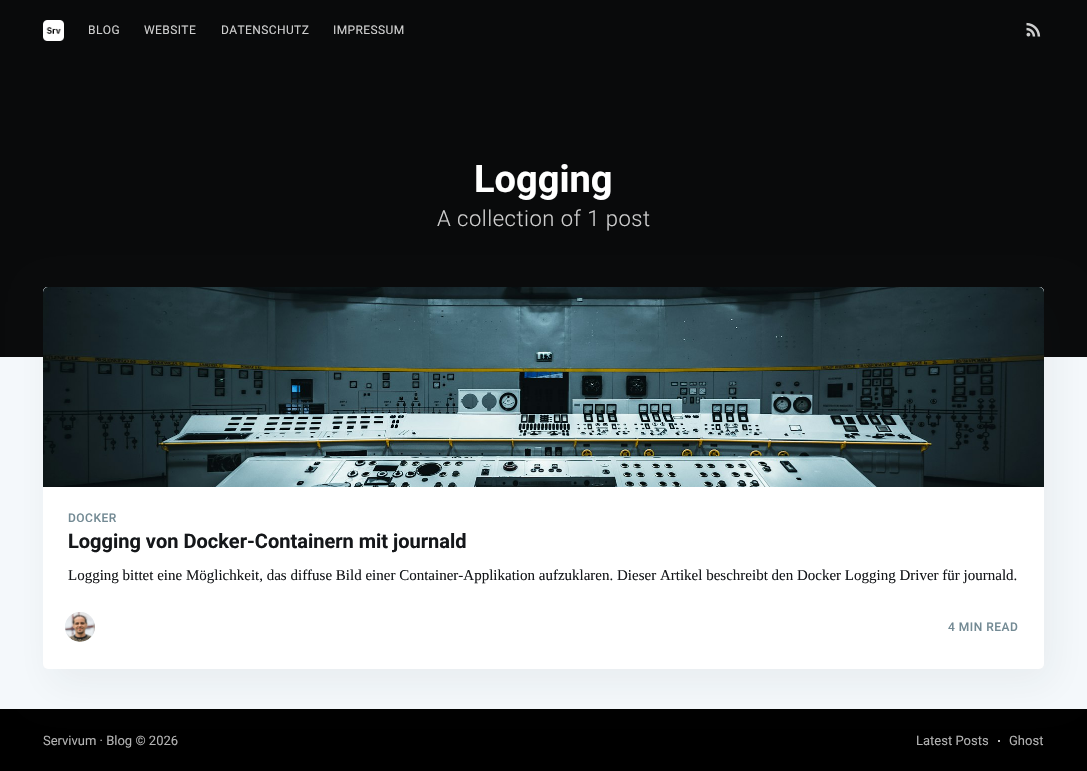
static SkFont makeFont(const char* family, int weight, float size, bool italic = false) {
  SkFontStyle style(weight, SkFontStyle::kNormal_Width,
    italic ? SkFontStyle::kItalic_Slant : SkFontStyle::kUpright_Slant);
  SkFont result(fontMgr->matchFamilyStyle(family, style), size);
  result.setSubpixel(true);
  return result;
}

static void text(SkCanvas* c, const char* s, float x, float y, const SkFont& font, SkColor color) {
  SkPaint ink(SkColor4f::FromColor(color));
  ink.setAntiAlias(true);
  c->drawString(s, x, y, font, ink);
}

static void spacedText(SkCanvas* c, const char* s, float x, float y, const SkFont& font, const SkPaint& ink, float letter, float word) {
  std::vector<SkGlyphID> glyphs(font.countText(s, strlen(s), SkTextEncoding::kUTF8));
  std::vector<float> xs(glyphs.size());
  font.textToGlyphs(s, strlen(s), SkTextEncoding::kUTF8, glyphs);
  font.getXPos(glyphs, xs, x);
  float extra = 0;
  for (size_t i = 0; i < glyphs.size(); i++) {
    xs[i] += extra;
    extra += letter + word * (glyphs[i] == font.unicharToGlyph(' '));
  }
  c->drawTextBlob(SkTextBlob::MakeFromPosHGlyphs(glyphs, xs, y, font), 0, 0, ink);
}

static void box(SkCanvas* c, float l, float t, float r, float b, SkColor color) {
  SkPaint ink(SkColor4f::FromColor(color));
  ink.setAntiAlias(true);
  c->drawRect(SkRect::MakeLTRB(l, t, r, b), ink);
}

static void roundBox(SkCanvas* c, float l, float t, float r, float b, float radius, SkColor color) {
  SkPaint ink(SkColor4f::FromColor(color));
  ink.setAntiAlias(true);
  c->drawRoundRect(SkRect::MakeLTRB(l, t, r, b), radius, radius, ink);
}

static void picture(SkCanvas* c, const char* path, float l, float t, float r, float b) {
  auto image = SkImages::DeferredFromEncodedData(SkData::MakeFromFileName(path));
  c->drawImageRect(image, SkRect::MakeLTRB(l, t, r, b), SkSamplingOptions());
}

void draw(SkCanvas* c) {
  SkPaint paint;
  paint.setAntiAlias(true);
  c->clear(0xfff4f8fb);
  box(c, 0, 0, 1087, 357, 0xff090a0b);
  picture(c, "img_01.png", 43, 20, 64, 41);
  SkFont face1 = makeFont("Roboto", 400, 12);
  paint.setColor(0xffcecece);
  spacedText(c, "BLOG", 88, 34, face1, paint, 0.4f, 0);
  spacedText(c, "WEBSITE", 144, 34, face1, paint, 0.4f, 0);
  spacedText(c, "DATENSCHUTZ", 221, 34, face1, paint, 0.4f, 0);
  spacedText(c, "IMPRESSUM", 333, 34, face1, paint, 0.4f, 0);
  picture(c, "img_02.png", 1026, 22, 1041, 37);
  SkFont face2 = makeFont("Roboto", 700, 38);
  text(c, "Logging", 474, 192, face2, 0xffffffff);
  SkFont face3 = makeFont("Roboto", 300, 22);
  spacedText(c, "A collection of 1 post", 437, 226, face3, paint, 0.5f, 0);
  box(c, 0, 709, 1087, 771, 0xff000000);
  paint.setColor(0xffffffff);
  c->drawCircle(999, 741, 1, paint);
  paint.setColor(0x0f272c31);
  paint.setMaskFilter(SkMaskFilter::MakeBlur(kNormal_SkBlurStyle, 19));
  c->drawRoundRect(SkRect::MakeLTRB(51, 301, 1052, 683), 5, 5, paint);
  paint.setMaskFilter(nullptr);
  roundBox(c, 43, 287, 1044, 669, 5, 0xffffffff);
  paint.setColor(0xffc5d2d9);
  c->drawPath(SkPathBuilder().moveTo(48, 287).lineTo(1039, 287).cubicTo(1042, 287, 1044, 289, 1044, 292).lineTo(1044, 487).lineTo(43, 487).lineTo(43, 292).cubicTo(43, 289, 45, 287, 48, 287).close().detach(), paint);
  picture(c, "img_03.png", 43, 287, 1044, 487);
  SkFont face4 = makeFont("Roboto", 500, 12);
  paint.setColor(0xff738a94);
  spacedText(c, "DOCKER", 68, 522, face4, paint, 0.5f, 0);
  SkFont face5 = makeFont("Roboto", 700, 20);
  text(c, "Logging von Docker-Containern mit journald", 68, 548, face5, 0xff15171a);
  SkFont face6 = makeFont("Liberation Serif", 400, 15);
  text(c, "Logging bittet eine Möglichkeit, das diffuse Bild einer Container-Applikation aufzuklaren. Dieser Artikel beschreibt den Docker Logging Driver für journald.", 68, 580, face6, 0xff15171a);
  paint.setColor(0xffe3e9ed);
  c->drawCircle(80, 627, 15, paint);
  picture(c, "img_04.png", 65, 612, 95, 642);
  paint.setColor(0xff738a94);
  spacedText(c, "4 MIN READ", 948, 631, face4, paint, 0.5f, 0);
  SkFont face7 = makeFont("Roboto", 400, 13);
  text(c, "Servivum · Blog © 2026", 43, 745, face7, 0xffb3b3b3);
  text(c, "Latest Posts", 916, 745, face7, 0xffb3b3b3);
  text(c, "Ghost", 1009, 745, face7, 0xffb3b3b3);
}
